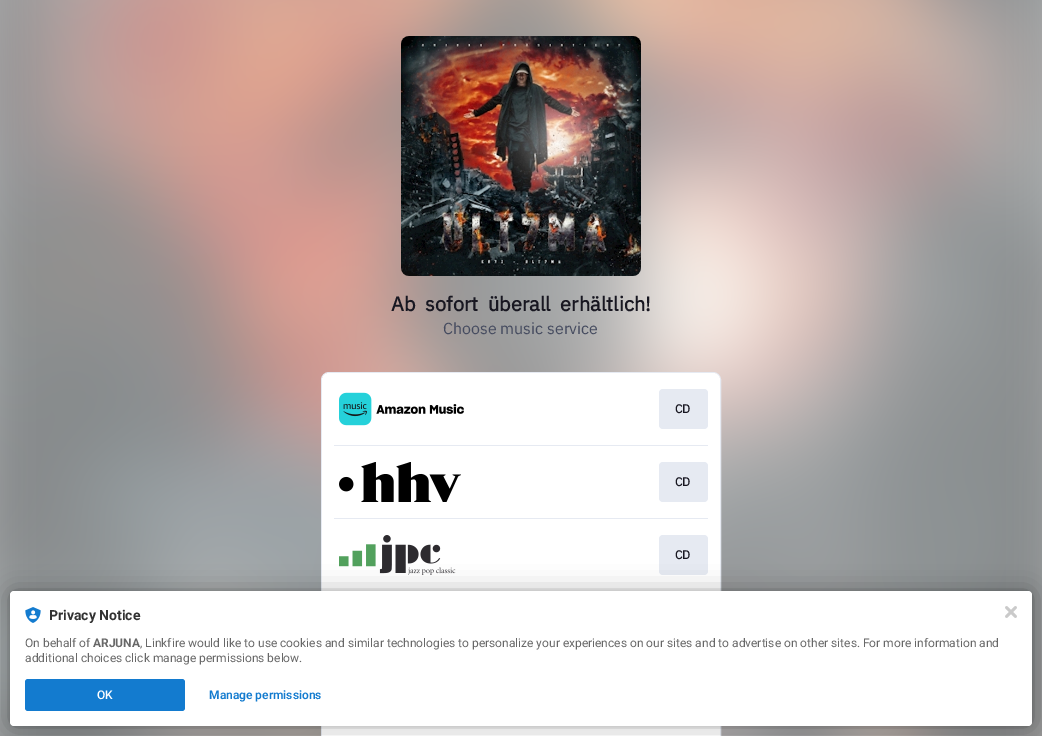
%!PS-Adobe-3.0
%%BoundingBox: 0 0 1042 736
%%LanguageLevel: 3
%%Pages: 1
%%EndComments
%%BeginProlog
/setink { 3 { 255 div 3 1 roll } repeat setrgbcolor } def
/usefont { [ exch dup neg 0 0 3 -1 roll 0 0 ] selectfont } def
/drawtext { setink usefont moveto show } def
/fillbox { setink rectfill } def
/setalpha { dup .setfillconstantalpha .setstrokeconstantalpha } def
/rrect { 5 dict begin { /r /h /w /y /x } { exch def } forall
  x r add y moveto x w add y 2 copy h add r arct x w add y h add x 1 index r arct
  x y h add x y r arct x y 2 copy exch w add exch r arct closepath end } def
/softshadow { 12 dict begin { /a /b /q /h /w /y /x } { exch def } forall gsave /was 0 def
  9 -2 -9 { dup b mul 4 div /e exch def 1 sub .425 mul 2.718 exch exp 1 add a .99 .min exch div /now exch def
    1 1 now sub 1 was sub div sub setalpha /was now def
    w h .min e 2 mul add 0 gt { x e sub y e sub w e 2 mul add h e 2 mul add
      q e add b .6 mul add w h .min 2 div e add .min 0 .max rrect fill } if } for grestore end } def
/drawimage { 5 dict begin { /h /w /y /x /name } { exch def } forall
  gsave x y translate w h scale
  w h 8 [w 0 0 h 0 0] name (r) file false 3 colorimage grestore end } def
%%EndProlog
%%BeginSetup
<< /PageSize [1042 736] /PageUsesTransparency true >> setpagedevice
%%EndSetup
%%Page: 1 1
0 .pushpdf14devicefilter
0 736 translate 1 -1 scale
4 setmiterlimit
0 0 1042 736 255 255 255 fillbox
(assets/img1.rgb) 0 0 1042 736 drawimage
(assets/img2.rgb) 401 36 240 240 drawimage
/IBMPlexSans-Bold 20 usefont
24 23 33 setink
391 311 moveto 5 0 32 (Ab sofort überall erhältlich!) widthshow
(Choose music service) 443 334 /IBMPlexSans-Regular 16 69 75 95 drawtext
230 234 242 setink
321.5 372.5 399 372 7.5 rrect stroke
255 255 255 setink
322 373 398 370 7 rrect fill
(assets/img3.rgb) 339 392 125 34 drawimage
230 234 242 setink
659 389 49 40 4 rrect fill
(CD) 675 413 /IBMPlexSans-Bold 12 24 23 33 drawtext
334 445 374 1 230 234 242 fillbox
(assets/img4.rgb) 339 462 122 40 drawimage
659 462 49 40 4 rrect fill
(CD) 675 486 /IBMPlexSans-Bold 12 24 23 33 drawtext
334 518 374 1 230 234 242 fillbox
(assets/img5.rgb) 339 535 117 40 drawimage
659 535 49 40 4 rrect fill
(CD) 675 559 /IBMPlexSans-Bold 12 24 23 33 drawtext
0 0 0 setink
10 591 1022 135 4 2 0.12 softshadow
10 591 1022 135 4 12 0.3 softshadow
255 255 255 setink
10 591 1022 135 4 rrect fill
(assets/img6.rgb) 25 607 16 16 drawimage
(Privacy Notice) 49 620 /Roboto-Bold 14 50 50 50 drawtext
(On behalf of) 25 647 /Roboto-Regular 12 104 104 104 drawtext
(ARJUNA) 93 647 /Roboto-Bold 12 104 104 104 drawtext
(, Linkfire would like to use cookies and similar technologies to personalize your experiences on our sites and to advertise on other sites. For more information and) 140 647 /Roboto-Regular 12 104 104 104 drawtext
(additional choices click manage permissions below.) 25 662 /Roboto-Regular 12 104 104 104 drawtext
19 123 207 setink
25 679 160 32 3 rrect fill
(OK) 97 699 /Roboto-Medium 12 255 255 255 drawtext
(Manage permissions) 209 699 /Roboto-SemiBold 12 19 123 207 drawtext
(assets/img7.rgb) 1005 606 12 12 drawimage
.poppdf14devicefilter showpage
%%EOF
